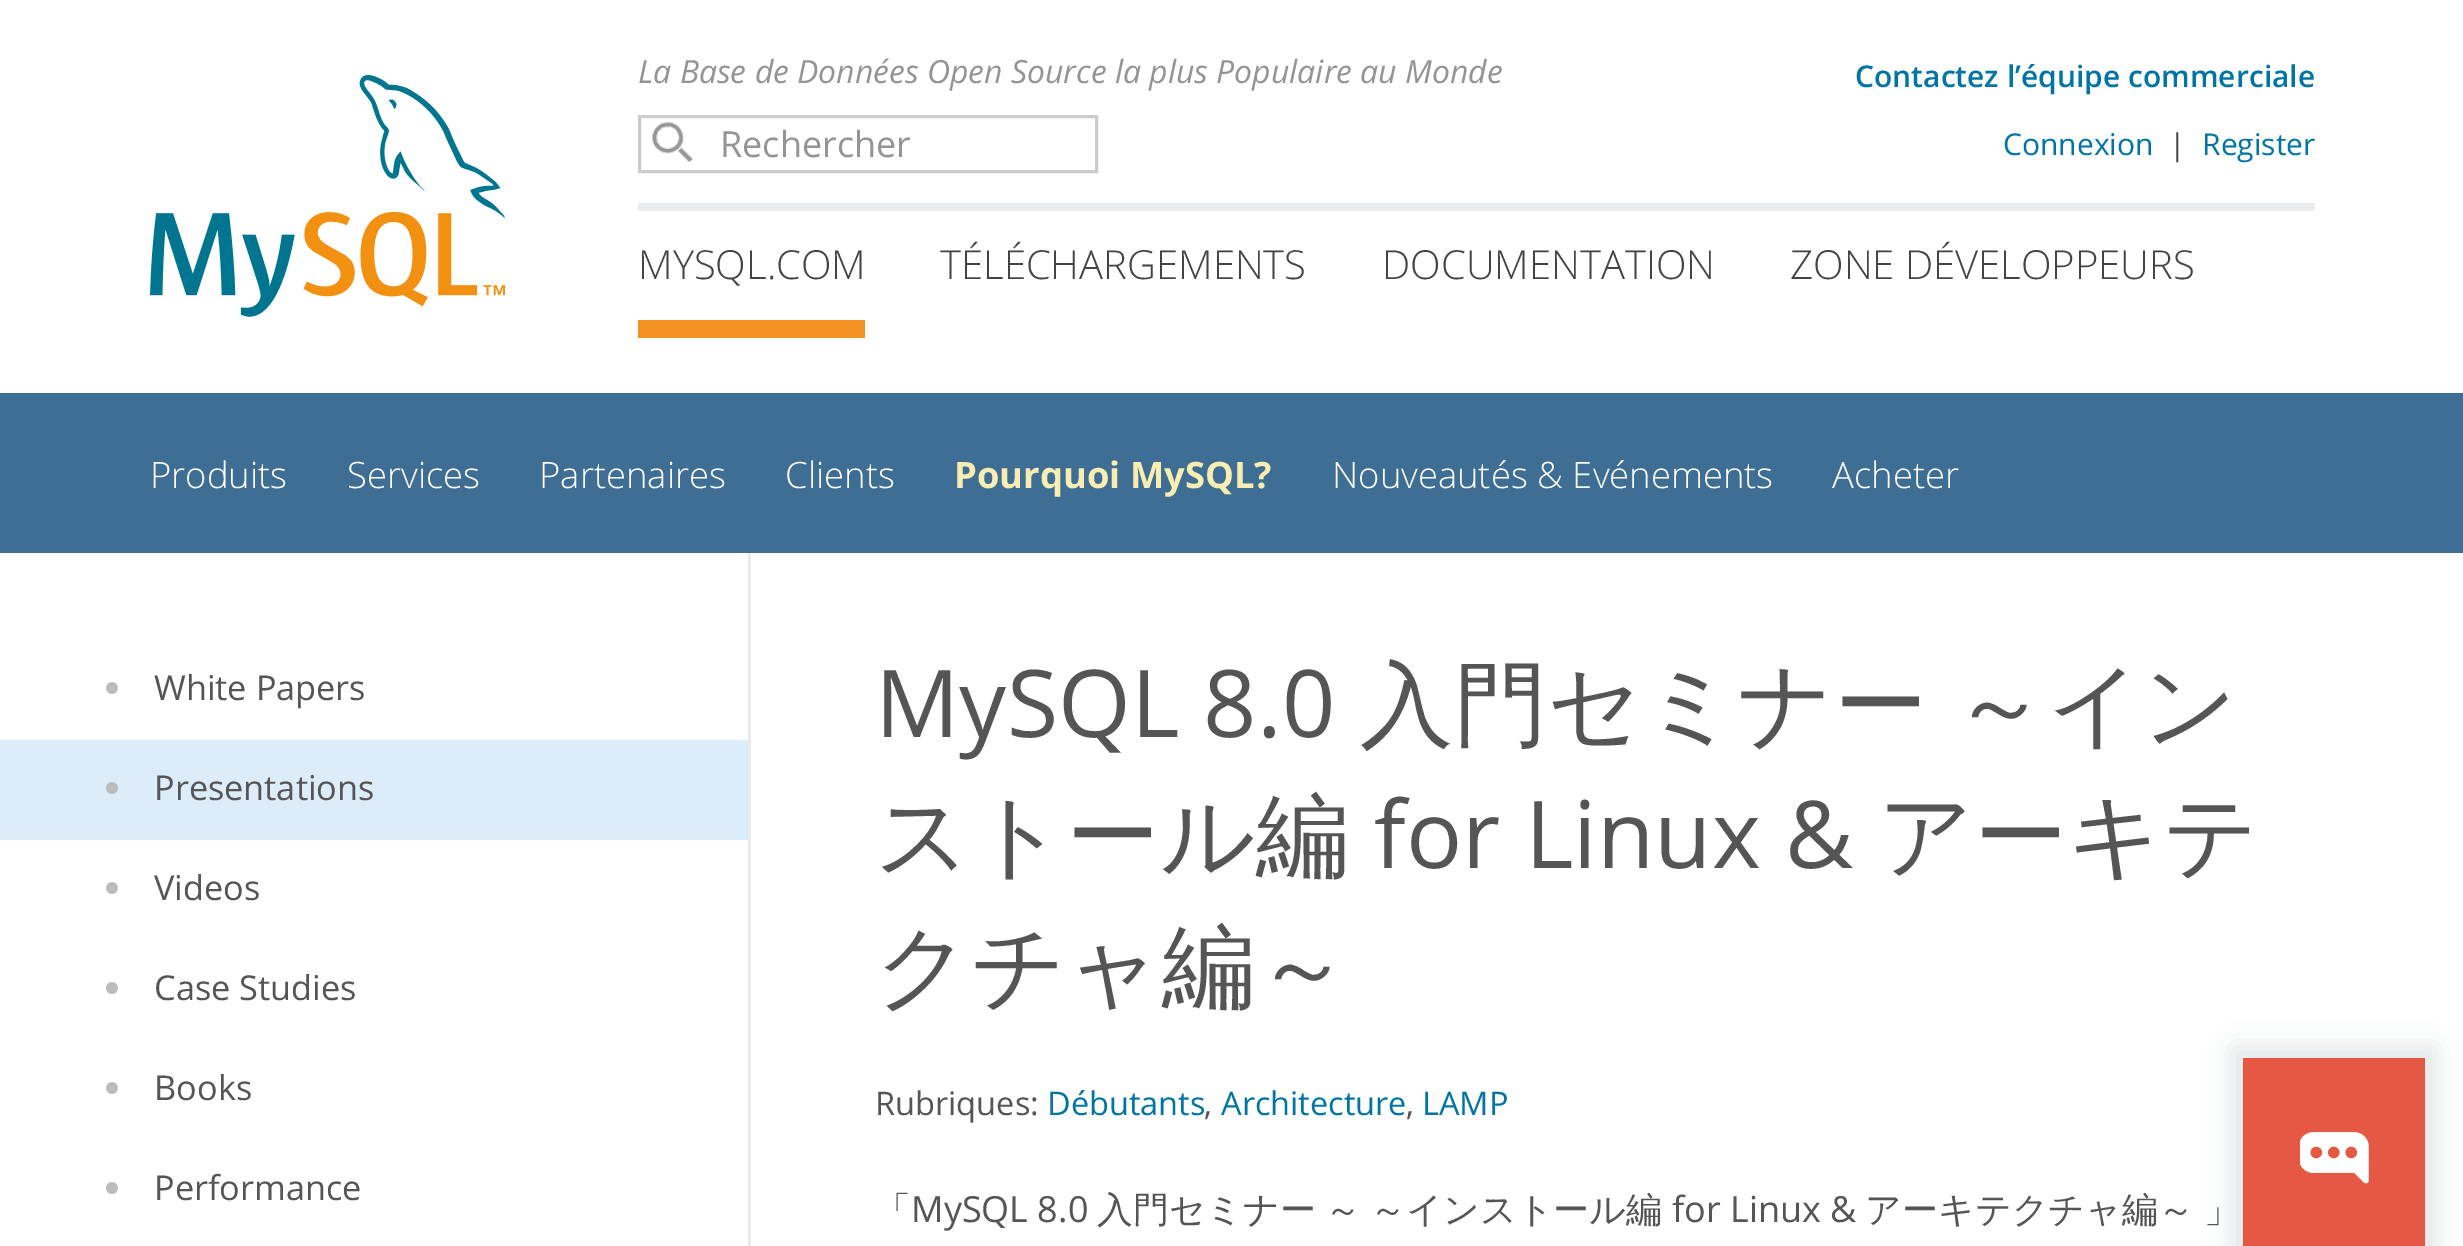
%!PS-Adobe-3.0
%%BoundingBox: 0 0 2463 1246
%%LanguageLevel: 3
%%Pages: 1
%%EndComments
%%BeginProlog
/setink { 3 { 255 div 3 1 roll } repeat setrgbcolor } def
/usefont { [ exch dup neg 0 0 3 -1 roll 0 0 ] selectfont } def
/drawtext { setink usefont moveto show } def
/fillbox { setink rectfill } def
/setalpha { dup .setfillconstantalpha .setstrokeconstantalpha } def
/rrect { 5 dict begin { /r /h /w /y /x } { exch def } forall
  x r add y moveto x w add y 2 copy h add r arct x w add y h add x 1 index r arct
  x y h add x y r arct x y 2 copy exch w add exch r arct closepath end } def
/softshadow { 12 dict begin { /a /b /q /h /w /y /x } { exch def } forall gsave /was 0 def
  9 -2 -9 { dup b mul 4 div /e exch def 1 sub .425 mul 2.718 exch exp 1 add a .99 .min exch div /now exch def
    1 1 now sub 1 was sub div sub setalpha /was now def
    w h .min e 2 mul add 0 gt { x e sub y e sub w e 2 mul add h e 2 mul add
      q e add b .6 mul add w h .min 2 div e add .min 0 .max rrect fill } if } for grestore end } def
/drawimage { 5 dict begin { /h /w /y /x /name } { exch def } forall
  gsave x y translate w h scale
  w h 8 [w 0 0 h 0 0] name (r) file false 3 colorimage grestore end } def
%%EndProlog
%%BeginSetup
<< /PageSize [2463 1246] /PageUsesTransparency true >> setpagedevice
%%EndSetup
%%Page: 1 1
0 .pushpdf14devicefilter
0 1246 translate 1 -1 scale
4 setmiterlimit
0 0 2463 1246 255 255 255 fillbox
(assets/img1.rgb) 150 75 355 242 drawimage
638 203 1677 8 235 236 238 fillbox
(La Base de Données Open Source la plus Populaire au Monde) 638 83 /OpenSans-Italic 32 148 148 148 drawtext
(Contactez l’équipe commerciale) 1855 87 /OpenSans-SemiBold 30 0 116 163 drawtext
(Connexion) 2003 155 /OpenSans-Regular 30 0 116 163 drawtext
(|) 2169 155 /OpenSans-Regular 30 68 68 68 drawtext
(Register) 2202 155 /OpenSans-Regular 30 0 116 163 drawtext
(assets/img2.rgb) 652 122 41 41 drawimage
204 204 204 setink
3 setlinewidth
639.5 116.5 457 55 rectstroke
(Rechercher) 720 157 /OpenSans-Regular 36 148 148 148 drawtext
638 320 227 18 242 146 33 fillbox
(MYSQL.COM) 638 279 /OpenSans-Light 40 68 68 68 drawtext
(TÉLÉCHARGEMENTS) 940 279 /OpenSans-Light 40 68 68 68 drawtext
(DOCUMENTATION) 1382 279 /OpenSans-Light 40 68 68 68 drawtext
(ZONE DÉVELOPPEURS) 1790 279 /OpenSans-Light 40 68 68 68 drawtext
0 393 2463 160 62 110 147 fillbox
(Produits) 150 488 /OpenSans-Light 36.4 255 255 255 drawtext
(Services) 347 488 /OpenSans-Light 36.4 255 255 255 drawtext
(Partenaires) 539 488 /OpenSans-Light 36.4 255 255 255 drawtext
(Clients) 785 488 /OpenSans-Light 36.4 255 255 255 drawtext
(Pourquoi MySQL?) 954 488 /OpenSans-Bold 36.4 250 237 178 drawtext
(Nouveautés & Evénements) 1332 488 /OpenSans-Light 36.4 255 255 255 drawtext
(Acheter) 1832 488 /OpenSans-Light 36.4 255 255 255 drawtext
748 553 3 693 233 234 235 fillbox
(assets/img3.rgb) 106 682 12 12 drawimage
(White Papers) 154 700 /OpenSans-Regular 34.25 85 85 85 drawtext
0 740 748 100 221 236 249 fillbox
(assets/img4.rgb) 106 782 12 12 drawimage
(Presentations) 154 800 /OpenSans-Regular 34.25 85 85 85 drawtext
(assets/img3.rgb) 106 882 12 12 drawimage
(Videos) 154 900 /OpenSans-Regular 34.25 85 85 85 drawtext
(assets/img3.rgb) 106 982 12 12 drawimage
(Case Studies) 154 1000 /OpenSans-Regular 34.25 85 85 85 drawtext
(assets/img3.rgb) 106 1082 12 12 drawimage
(Books) 154 1100 /OpenSans-Regular 34.25 85 85 85 drawtext
(assets/img3.rgb) 106 1182 12 12 drawimage
(Performance) 154 1200 /OpenSans-Regular 34.25 85 85 85 drawtext
(MySQL 8.0) 875 737 /OpenSans-Regular 93.5 85 85 85 drawtext
(入門セミナー) 1360 737 /WenQuanYiZenHei-Medium 93.5 85 85 85 drawtext
(～イン) 1953 737 /WenQuanYiZenHei-Medium 93.5 85 85 85 drawtext
(ストール編) 875 868 /WenQuanYiZenHei-Medium 93.5 85 85 85 drawtext
(for Linux &) 1374 868 /OpenSans-Regular 93.5 85 85 85 drawtext
(アーキテ) 1878 868 /WenQuanYiZenHei-Medium 93.5 85 85 85 drawtext
(クチャ編～) 875 999 /WenQuanYiZenHei-Medium 93.5 85 85 85 drawtext
(Rubriques:) 875 1115 /OpenSans-Regular 32.5 85 85 85 drawtext
(Débutants) 1047 1115 /OpenSans-Regular 32.5 0 116 163 drawtext
(,) 1204 1115 /OpenSans-Regular 32.5 85 85 85 drawtext
(Architecture) 1221 1115 /OpenSans-Regular 32.5 0 116 163 drawtext
(,) 1406 1115 /OpenSans-Regular 32.5 85 85 85 drawtext
(LAMP) 1422 1115 /OpenSans-Regular 32.5 0 116 163 drawtext
(「) 875 1222 /WenQuanYiZenHei-Medium 36 85 85 85 drawtext
(MySQL 8.0) 911 1222 /OpenSans-Regular 36 85 85 85 drawtext
(入門セミナー) 1097 1222 /WenQuanYiZenHei-Medium 36 85 85 85 drawtext
(～) 1325 1222 /WenQuanYiZenHei-Medium 36 85 85 85 drawtext
(～インストール編) 1370 1222 /WenQuanYiZenHei-Medium 36 85 85 85 drawtext
(for Linux &) 1672 1222 /OpenSans-Regular 36 85 85 85 drawtext
(アーキテクチャ編～) 1865 1222 /WenQuanYiZenHei-Medium 36 85 85 85 drawtext
(」) 2204 1222 /WenQuanYiZenHei-Medium 36 85 85 85 drawtext
50 75 92 setink
2233 1048 202 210 0 12.5 0.15 softshadow
2243 1058 182 188 229 88 68 fillbox
(assets/img5.rgb) 2300 1132 69 52 drawimage
.poppdf14devicefilter showpage
%%EOF
